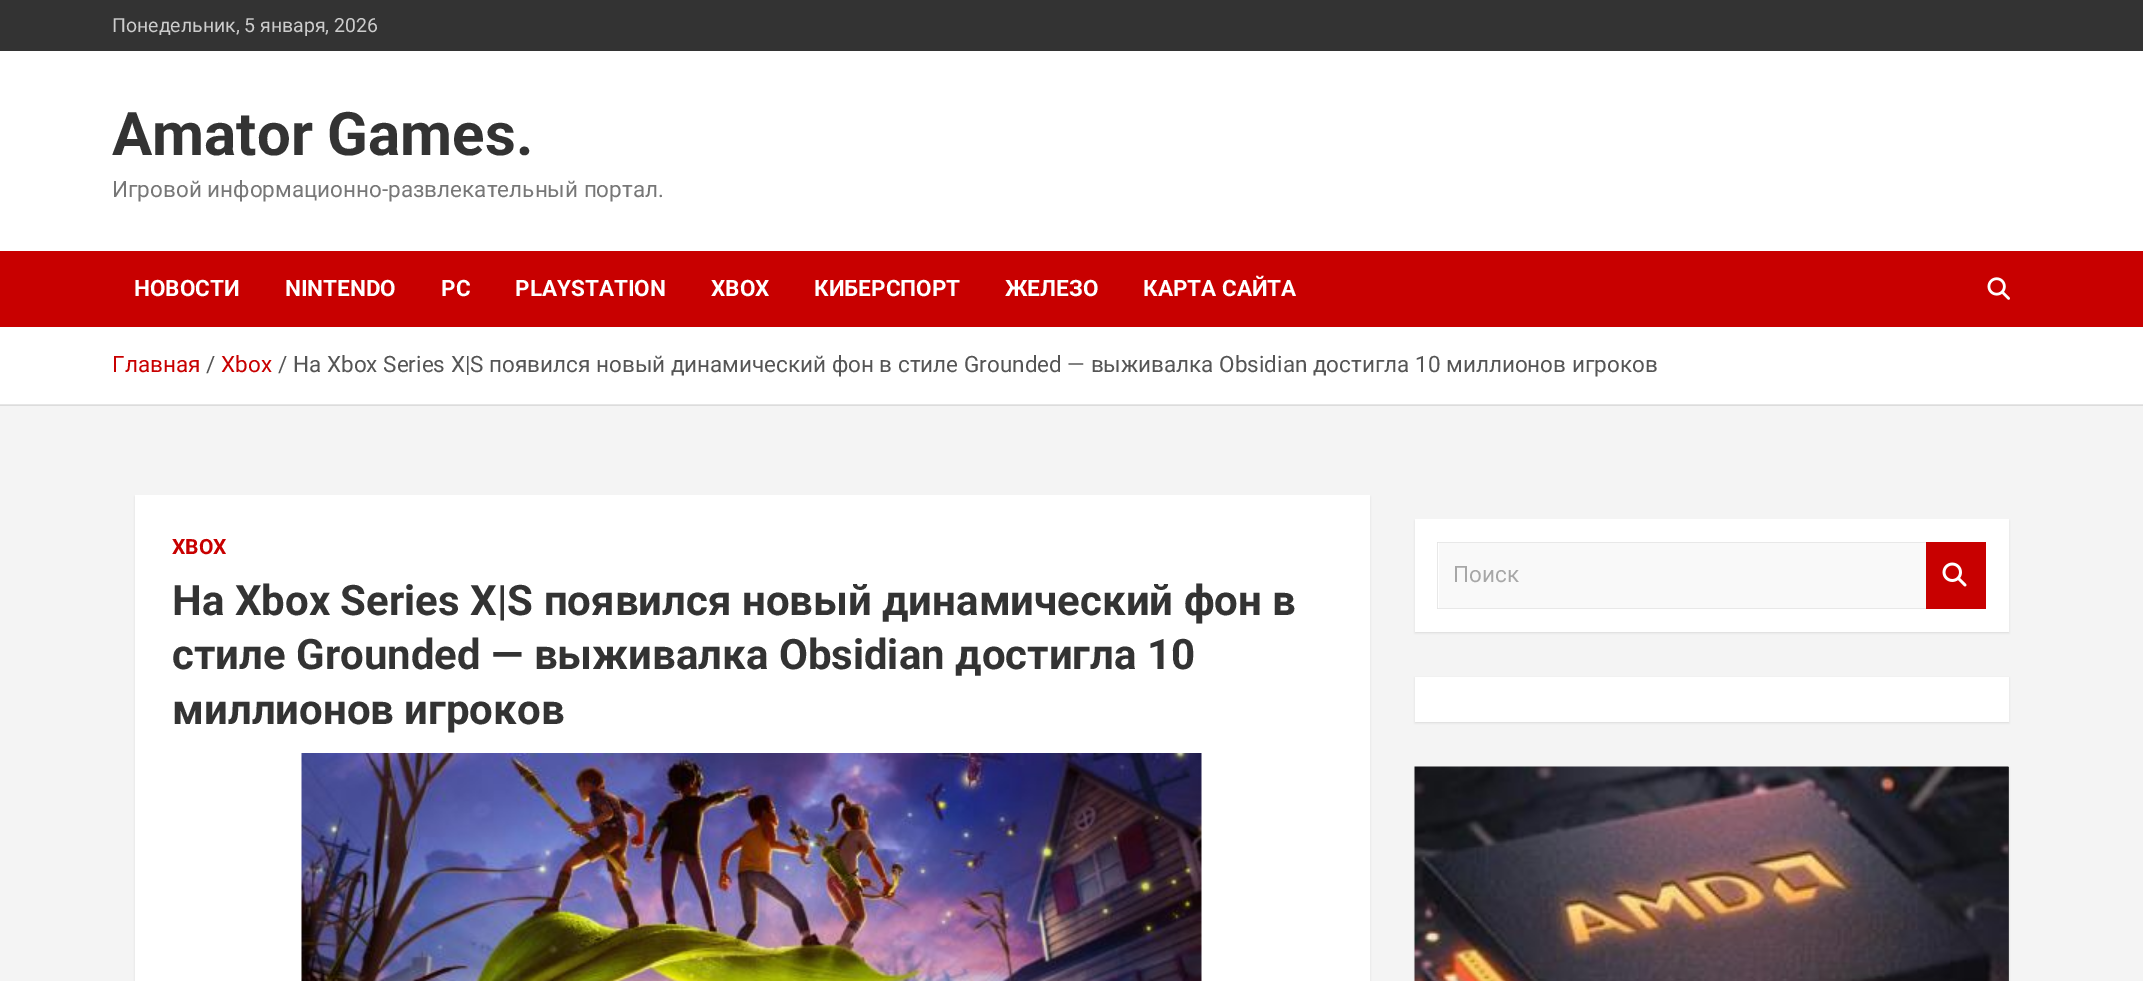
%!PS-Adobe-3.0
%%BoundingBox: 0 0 2143 981
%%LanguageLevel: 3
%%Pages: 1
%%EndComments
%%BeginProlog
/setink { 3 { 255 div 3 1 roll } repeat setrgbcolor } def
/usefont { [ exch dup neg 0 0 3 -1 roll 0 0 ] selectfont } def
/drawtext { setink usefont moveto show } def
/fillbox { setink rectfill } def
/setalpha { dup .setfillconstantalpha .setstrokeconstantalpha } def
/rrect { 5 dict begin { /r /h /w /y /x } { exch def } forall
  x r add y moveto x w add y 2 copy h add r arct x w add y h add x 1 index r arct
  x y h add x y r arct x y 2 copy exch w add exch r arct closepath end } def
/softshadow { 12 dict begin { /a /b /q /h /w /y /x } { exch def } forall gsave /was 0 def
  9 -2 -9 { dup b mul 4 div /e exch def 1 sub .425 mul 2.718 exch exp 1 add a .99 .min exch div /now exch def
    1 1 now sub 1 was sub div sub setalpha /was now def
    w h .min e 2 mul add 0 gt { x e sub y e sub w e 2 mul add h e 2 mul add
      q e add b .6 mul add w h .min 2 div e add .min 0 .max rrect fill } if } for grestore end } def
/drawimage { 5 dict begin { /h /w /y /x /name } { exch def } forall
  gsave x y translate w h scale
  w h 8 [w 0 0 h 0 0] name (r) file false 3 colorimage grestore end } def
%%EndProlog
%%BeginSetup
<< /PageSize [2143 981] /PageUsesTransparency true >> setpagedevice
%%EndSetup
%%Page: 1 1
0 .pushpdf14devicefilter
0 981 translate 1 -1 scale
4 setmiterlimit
0 0 2143 981 244 244 244 fillbox
0 405 2143 1 220 220 220 fillbox
0 0 2143 51 51 51 51 fillbox
(Понедельник, 5 января, 2026) 112 32 /Roboto-Regular 19.5 204 204 204 drawtext
0 51 2143 200 255 255 255 fillbox
(Amator Games.) 112 155 /Roboto-Bold 60 51 51 51 drawtext
(Игровой информационно-развлекательный портал.) 112 197 /Roboto-Regular 22.5 119 119 119 drawtext
0 251 2143 76 200 0 0 fillbox
(НОВОСТИ) 134 296 /Roboto-Bold 22.5 255 255 255 drawtext
(NINTENDO) 285 296 /Roboto-Bold 22.5 255 255 255 drawtext
(PC) 441 296 /Roboto-Bold 22.5 255 255 255 drawtext
(PLAYSTATION) 515 296 /Roboto-Bold 22.5 255 255 255 drawtext
(XBOX) 711 296 /Roboto-Bold 22.5 255 255 255 drawtext
(КИБЕРСПОРТ) 814 296 /Roboto-Bold 22.5 255 255 255 drawtext
(ЖЕЛЕЗО) 1005 296 /Roboto-Bold 22.5 255 255 255 drawtext
(КАРТА САЙТА) 1143 296 /Roboto-Bold 22.5 255 255 255 drawtext
(assets/img1.rgb) 1987 277 23 23 drawimage
0 327 2143 77 255 255 255 fillbox
0 404 2143 1 230 230 230 fillbox
(Главная) 112 372 /Roboto-Regular 22.5 200 0 0 drawtext
(/) 206 372 /Roboto-Regular 22.5 85 85 85 drawtext
(Xbox) 221 372 /Roboto-Regular 22.5 200 0 0 drawtext
(/) 278 372 /Roboto-Regular 22.5 85 85 85 drawtext
(На Xbox Series X|S появился новый динамический фон в стиле Grounded — выживалка Obsidian достигла 10 миллионов игроков) 293 372 /Roboto-Regular 22.5 85 85 85 drawtext
0 0 0 setink
135 497 1235 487 0 1 0.1 softshadow
135 495 1235 486 255 255 255 fillbox
(XBOX) 172 554 /Roboto-Bold 21 200 0 0 drawtext
(На Xbox Series X|S появился новый динамический фон в) 172 615 /Roboto-Bold 42 51 51 51 drawtext
(стиле Grounded — выживалка Obsidian достигла 10) 172 669 /Roboto-Bold 42 51 51 51 drawtext
(миллионов игроков) 172 724 /Roboto-Bold 42 51 51 51 drawtext
(assets/img2.rgb) 301 753 901 228 drawimage
0 0 0 setink
1415 521 594 112 0 1 0.1 softshadow
1415 519 594 113 255 255 255 fillbox
1439 543 487 65 249 249 249 fillbox
232 232 232 setink
1437 542 moveto 1926 542 lineto 1926 543 lineto 1438 543 lineto closepath fill
1926 609 moveto 1437 609 lineto 1438 608 lineto 1926 608 lineto closepath fill
0.09 setalpha
0 0 0 setink
1437 609 moveto 1437 542 lineto 1438 543 lineto 1438 608 lineto closepath fill
1 setalpha
(Поиск) 1453 582 /Roboto-Regular 22.5 167 167 167 drawtext
1926 542 60 67 200 0 0 fillbox
(assets/img3.rgb) 1942 562 25 25 drawimage
0 0 0 setink
1415 678 594 45 0 1 0.1 softshadow
1415 677 594 45 255 255 255 fillbox
0 0 0 setink
1415 768 594 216 0 1 0.1 softshadow
2008 767 1 214 85 85 85 fillbox
(assets/img4.rgb) 1414 766 595 215 drawimage
.poppdf14devicefilter showpage
%%EOF
